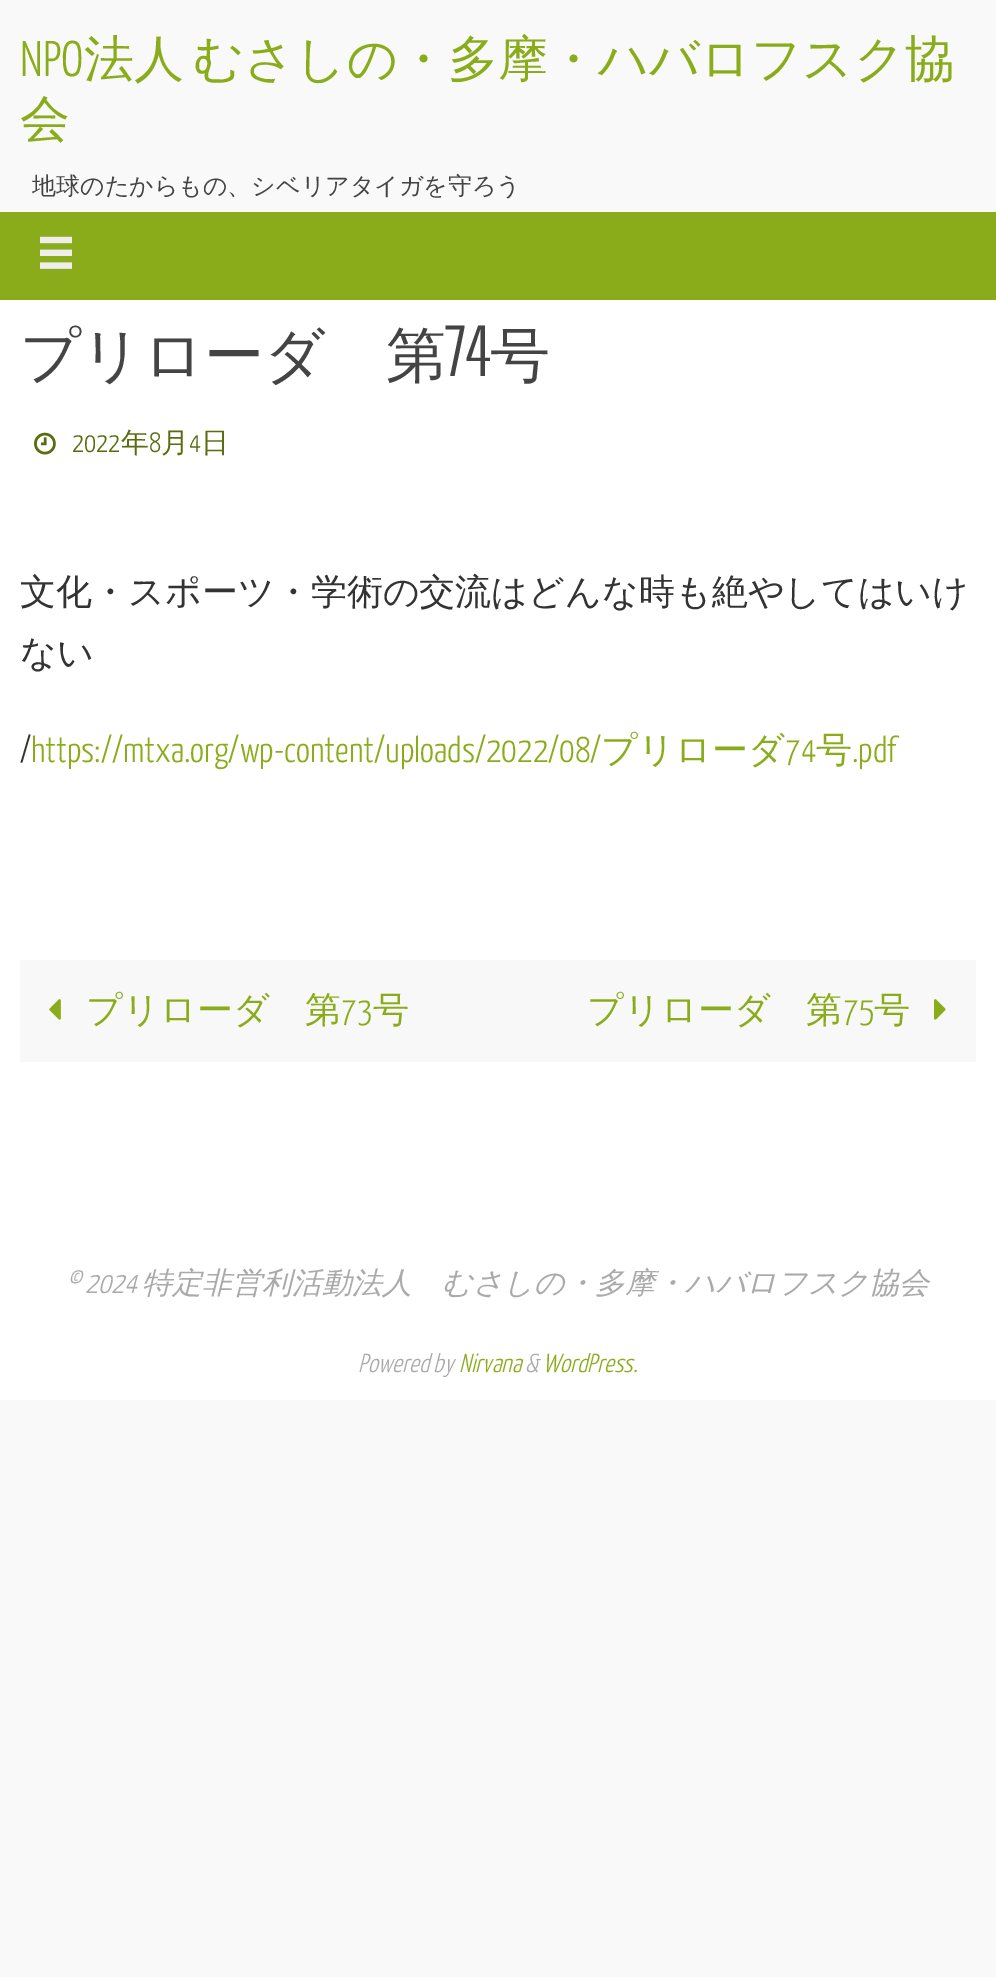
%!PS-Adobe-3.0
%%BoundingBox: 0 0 996 1977
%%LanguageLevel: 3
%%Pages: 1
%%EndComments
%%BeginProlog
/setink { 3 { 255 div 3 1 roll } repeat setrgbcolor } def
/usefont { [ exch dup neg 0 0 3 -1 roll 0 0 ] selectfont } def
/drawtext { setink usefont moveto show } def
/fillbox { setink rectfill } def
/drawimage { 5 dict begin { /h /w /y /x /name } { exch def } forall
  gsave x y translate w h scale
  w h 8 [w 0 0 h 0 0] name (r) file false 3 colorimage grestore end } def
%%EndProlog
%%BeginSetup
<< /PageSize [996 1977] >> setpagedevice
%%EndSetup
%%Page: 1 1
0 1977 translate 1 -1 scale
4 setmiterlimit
0 0 996 1977 249 249 249 fillbox
(NPO) 20 76 /YanoneKaffeesatz-Light 50 138 172 26 drawtext
/WenQuanYiZenHei-Medium 50 usefont
84 76 moveto -6 0 32 (法人 むさしの・多摩・ハバロフスク協) widthshow
(会) 20 136 /WenQuanYiZenHei-Medium 50 138 172 26 drawtext
(地球のたからもの、シベリアタイガを守ろう) 32 194 /WenQuanYiZenHei-Medium 24 68 68 68 drawtext
0 212 996 88 138 172 26 fillbox
(assets/img1.rgb) 40 236 32 33 drawimage
0 300 996 1100 255 255 255 fillbox
(プリローダ　第) 20 376 /WenQuanYiZenHei-Medium 60 68 68 68 drawtext
(74) 446 376 /Oswald-Light 60 68 68 68 drawtext
(号) 490 376 /WenQuanYiZenHei-Medium 60 68 68 68 drawtext
(assets/img2.rgb) 34 432 22 23 drawimage
(2022) 72 452 /YanoneKaffeesatz-Light 28 88 110 16 drawtext
(年) 121 452 /WenQuanYiZenHei-Medium 28 88 110 16 drawtext
(8) 149 452 /YanoneKaffeesatz-Light 28 88 110 16 drawtext
(月) 161 452 /WenQuanYiZenHei-Medium 28 88 110 16 drawtext
(4) 189 452 /YanoneKaffeesatz-Light 28 88 110 16 drawtext
(日) 201 452 /WenQuanYiZenHei-Medium 28 88 110 16 drawtext
(文化・スポーツ・学術の交流はどんな時も絶やしてはいけ) 20 604 /WenQuanYiZenHei-Medium 36 51 51 51 drawtext
(ない) 20 665 /WenQuanYiZenHei-Medium 36 51 51 51 drawtext
(/) 20 762 /YanoneKaffeesatz-Light 36 51 51 51 drawtext
(https://mtxa.org/wp-content/uploads/2022/08/) 31 762 /YanoneKaffeesatz-Light 36 138 172 26 drawtext
(プリローダ) 601 762 /WenQuanYiZenHei-Medium 36 138 172 26 drawtext
(74) 785 762 /YanoneKaffeesatz-Light 36 138 172 26 drawtext
(号) 816 762 /WenQuanYiZenHei-Medium 36 138 172 26 drawtext
(.pdf) 852 762 /YanoneKaffeesatz-Light 36 138 172 26 drawtext
20 960 956 102 248 248 248 fillbox
(assets/img3.rgb) 49 999 12 21 drawimage
(プリローダ　第) 86 1022 /WenQuanYiZenHei-Medium 36 138 172 26 drawtext
(73) 341 1022 /YanoneKaffeesatz-Light 36 138 172 26 drawtext
(号) 373 1022 /WenQuanYiZenHei-Medium 36 138 172 26 drawtext
(プリローダ　第) 587 1022 /WenQuanYiZenHei-Medium 36 138 172 26 drawtext
(75) 843 1022 /YanoneKaffeesatz-Light 36 138 172 26 drawtext
(号) 874 1022 /WenQuanYiZenHei-Medium 36 138 172 26 drawtext
(assets/img4.rgb) 934 999 12 21 drawimage
(© 2024) 66 1293 /YanoneKaffeesatz-LightItalic 30 170 170 170 drawtext
(特定非営利活動法人　むさしの・多摩・ハバロフスク協会) 142 1293 /WenQuanYiZenHei-MediumItalic 30 170 170 170 drawtext
(Powered by) 358 1372 /YanoneKaffeesatz-LightItalic 26 170 170 170 drawtext
(Nirvana) 459 1372 /YanoneKaffeesatz-LightItalic 26 138 172 26 drawtext
(&) 525 1372 /YanoneKaffeesatz-LightItalic 26 170 170 170 drawtext
(WordPress.) 543 1372 /YanoneKaffeesatz-LightItalic 26 138 172 26 drawtext
showpage
%%EOF
